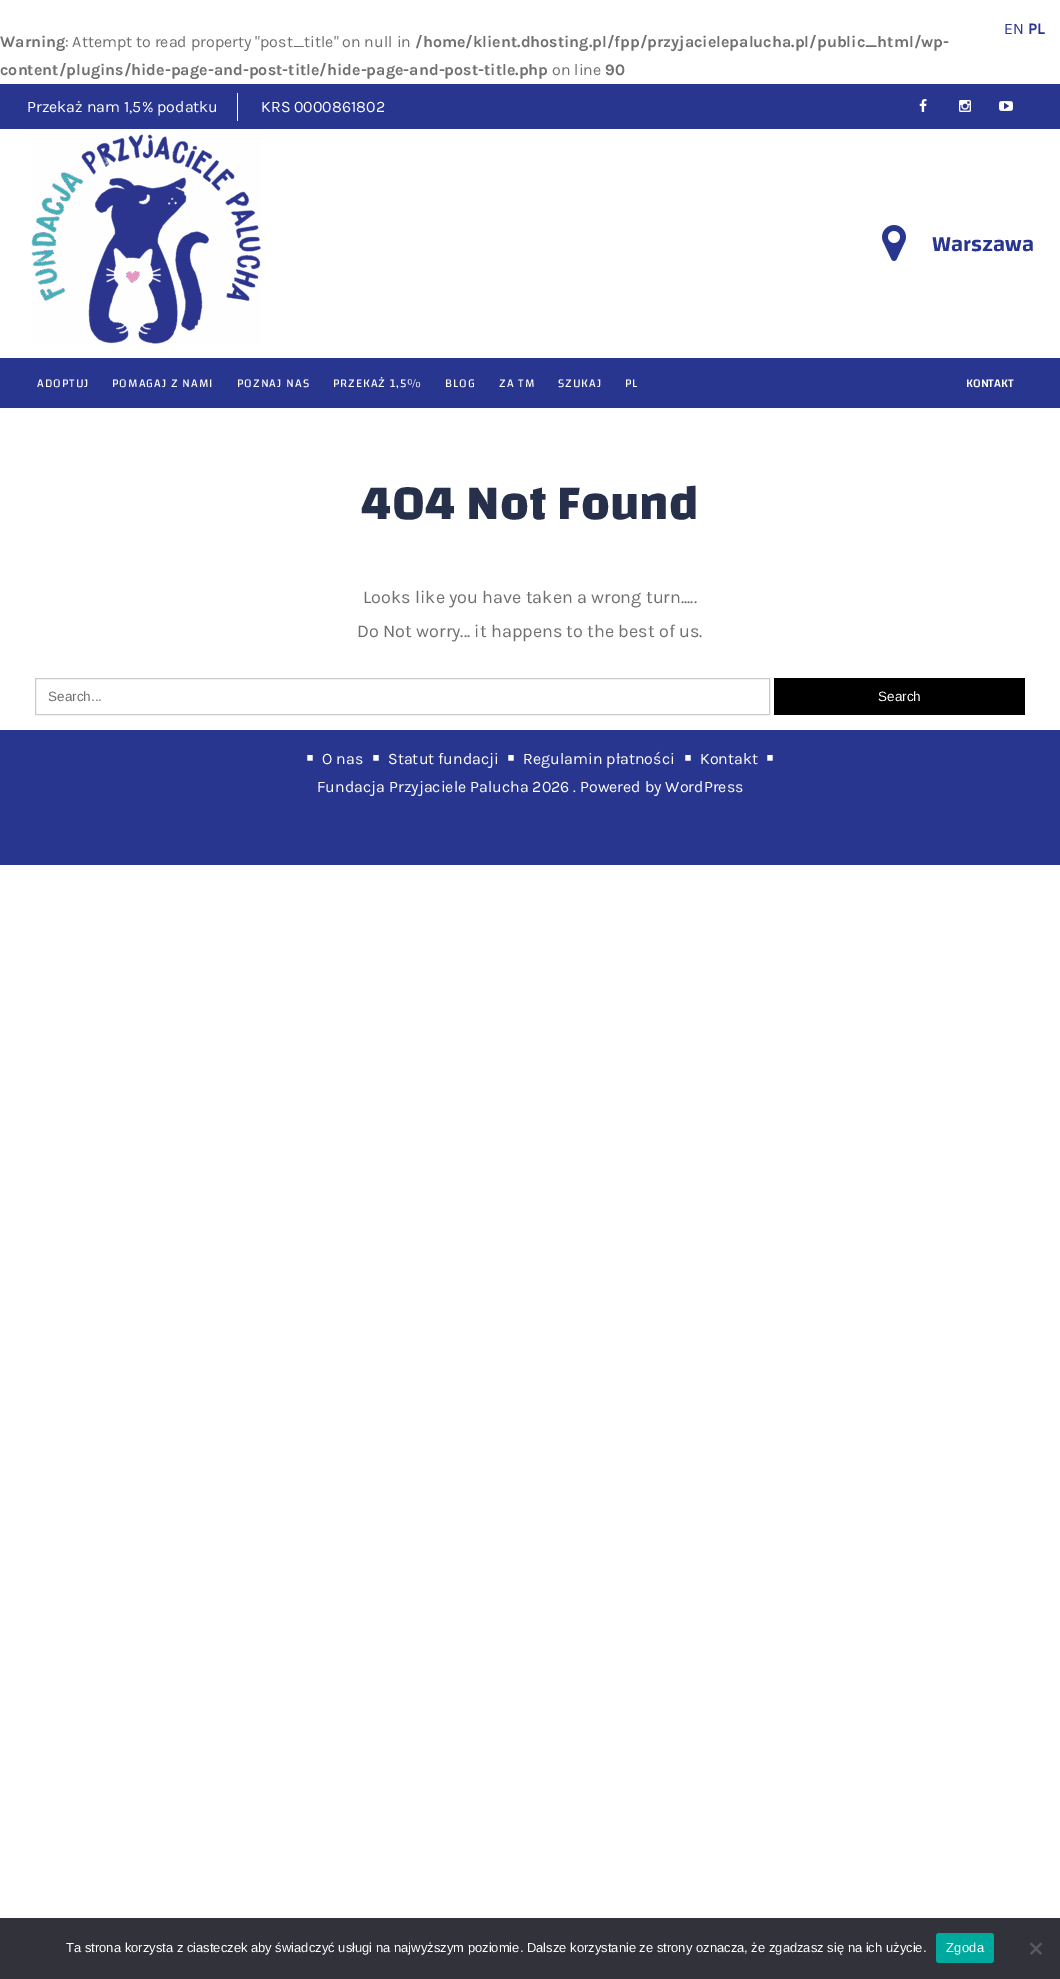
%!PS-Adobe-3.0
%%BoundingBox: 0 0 1060 1979
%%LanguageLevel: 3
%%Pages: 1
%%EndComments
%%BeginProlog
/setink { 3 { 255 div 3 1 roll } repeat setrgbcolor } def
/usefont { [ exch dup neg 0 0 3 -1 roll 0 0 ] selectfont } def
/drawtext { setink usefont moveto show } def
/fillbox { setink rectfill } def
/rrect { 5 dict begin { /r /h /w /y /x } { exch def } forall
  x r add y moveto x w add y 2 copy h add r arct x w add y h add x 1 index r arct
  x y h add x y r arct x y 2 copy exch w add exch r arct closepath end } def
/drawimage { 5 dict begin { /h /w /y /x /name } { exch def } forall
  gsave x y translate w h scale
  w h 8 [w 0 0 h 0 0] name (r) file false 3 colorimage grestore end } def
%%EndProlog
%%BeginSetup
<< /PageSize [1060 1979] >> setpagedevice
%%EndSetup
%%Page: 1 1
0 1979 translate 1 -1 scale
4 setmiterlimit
0 0 1060 1979 255 255 255 fillbox
(Warning) 0 47 /Karla-Bold 16 112 112 112 drawtext
(EN) 1004 34 /Karla-Regular 16 41 54 144 drawtext
(PL) 1028 34 /Karla-Bold 16 41 54 144 drawtext
0 1918 1060 61 50 50 58 fillbox
(Ta strona korzysta z ciasteczek aby świadczyć usługi na najwyższym poziomie. Dalsze korzystanie ze strony oznacza, że zgadzasz się na ich użycie.) 66 1952 /LiberationSans-Regular 13 255 255 255 drawtext
0 169 157 setink
936 1933 58 30 3 rrect fill
255 255 255 setink
946 1952 moveto 0.25 0 (Zgoda) ashow
89 89 93 setink
1040.5 1942.5 moveto 1042 1944 lineto 1031.5 1955 lineto 1030 1953.5 lineto closepath fill
1030 1944 moveto 1031.5 1942.5 lineto 1042 1953.5 lineto 1040.5 1955 lineto closepath fill
(: Attempt to read property "post_title" on null in) 65 47 /Karla-Regular 16 112 112 112 drawtext
(/home/klient.dhosting.pl/fpp/przyjacielepalucha.pl/public_html/wp-) 415 47 /Karla-Bold 16 112 112 112 drawtext
(content/plugins/hide-page-and-post-title/hide-page-and-post-title.php) 0 75 /Karla-Bold 16 112 112 112 drawtext
(on line) 552 75 /Karla-Regular 16 112 112 112 drawtext
(90) 605 75 /Karla-Bold 16 112 112 112 drawtext
0 84 1060 45 41 54 144 fillbox
(Przekaż nam 1,5% podatku) 27 112 /Karla-Regular 16 255 255 255 drawtext
237 93 1 28 255 255 255 fillbox
(KRS 0000861802) 261 112 /Karla-Regular 16 255 255 255 drawtext
(assets/img1.rgb) 919 99 8 13 drawimage
(assets/img2.rgb) 959 100 12 12 drawimage
(assets/img3.rgb) 999 101 14 10 drawimage
(assets/img4.rgb) 31 134 230 210 drawimage
(assets/img5.rgb) 882 225 24 36 drawimage
(Warszawa) 932 251 /Changa-SemiBold 22 41 54 144 drawtext
0 358 1060 50 41 54 144 fillbox
/Changa-Regular 12 usefont
255 255 255 setink
37 387 moveto 1 0 (ADOPTUJ) ashow
112 387 moveto 1 0 (POMAGAJ Z NAMI) ashow
237 387 moveto 1 0 (POZNAJ NAS) ashow
333 387 moveto 1 0 (PRZEKAŻ 1,5%) ashow
445 387 moveto 1 0 (BLOG) ashow
499 387 moveto 1 0 (ZA TM) ashow
558 387 moveto 1 0 (SZUKAJ) ashow
625 387 moveto 1 0 (PL) ashow
(KONTAKT) 966 387 /Changa-Medium 12 255 255 255 drawtext
(404 Not Found) 361 519 /Changa-Bold 50 39 48 75 drawtext
(Looks like you have taken a wrong turn.....) 363 603 /Karla-Regular 18 112 112 112 drawtext
(Do Not worry... it happens to the best of us.) 357 637 /Karla-Regular 18 112 112 112 drawtext
204 204 204 setink
35.5 678.5 734 36 rectstroke
(Search...) 48 701 /LiberationSans-Regular 13.5 112 112 112 drawtext
774 678 251 37 0 0 0 fillbox
(Search) 878 701 /LiberationSans-Regular 13.5 255 255 255 drawtext
0 730 1060 135 41 54 144 fillbox
(￭) 306 764 /ChironHeiHK-Regular 16 255 255 255 drawtext
(O nas) 322 764 /Karla-Regular 16 255 255 255 drawtext
(￭) 372 764 /ChironHeiHK-Regular 16 255 255 255 drawtext
(Statut fundacji) 388 764 /Karla-Regular 16 255 255 255 drawtext
(￭) 507 764 /ChironHeiHK-Regular 16 255 255 255 drawtext
(Regulamin płatności) 523 764 /Karla-Regular 16 255 255 255 drawtext
(￭) 684 764 /ChironHeiHK-Regular 16 255 255 255 drawtext
(Kontakt) 700 764 /Karla-Regular 16 255 255 255 drawtext
(￭) 766 764 /ChironHeiHK-Regular 16 255 255 255 drawtext
(Fundacja Przyjaciele Palucha 2026 . Powered by WordPress) 317 792 /Karla-Regular 16 255 255 255 drawtext
showpage
%%EOF
